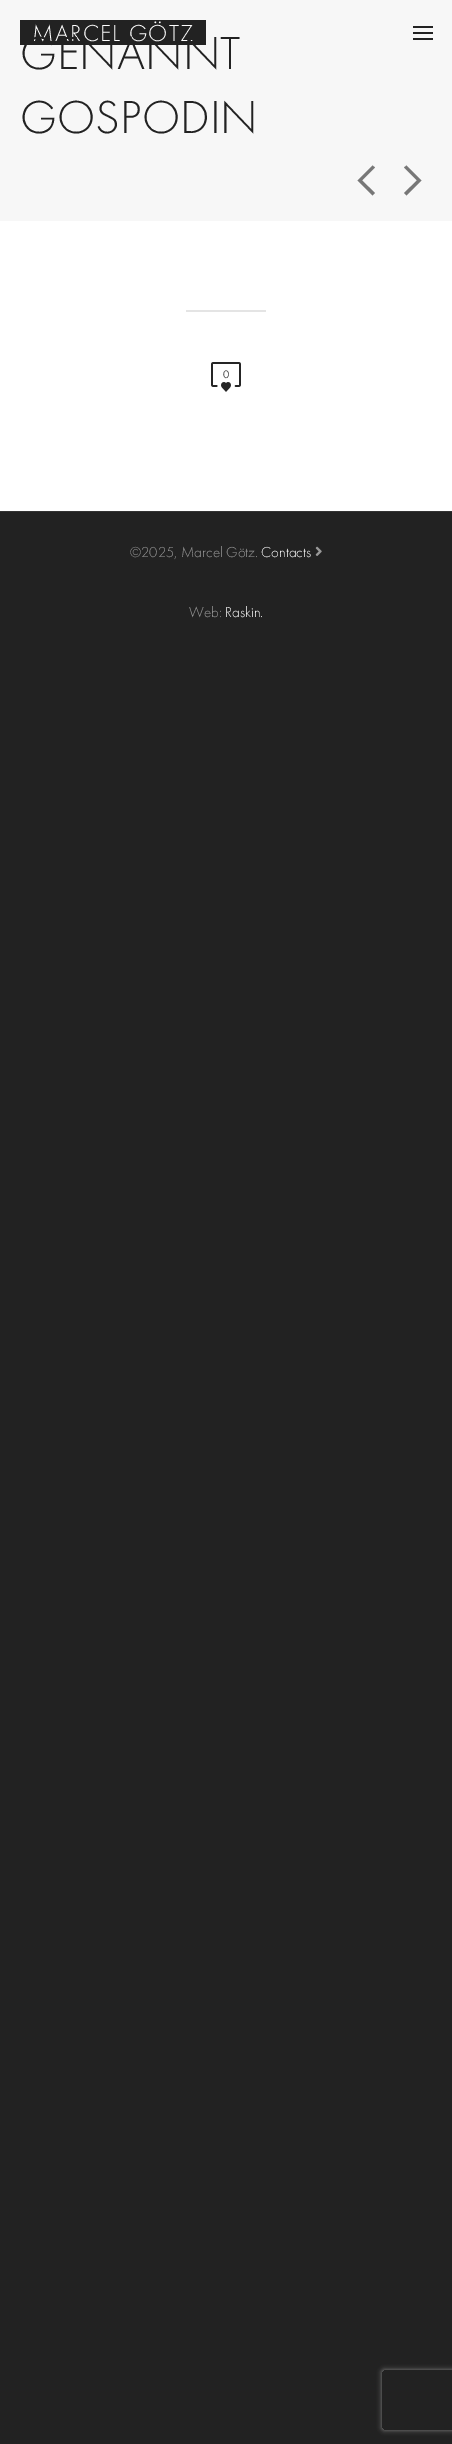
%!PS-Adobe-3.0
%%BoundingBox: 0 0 452 2444
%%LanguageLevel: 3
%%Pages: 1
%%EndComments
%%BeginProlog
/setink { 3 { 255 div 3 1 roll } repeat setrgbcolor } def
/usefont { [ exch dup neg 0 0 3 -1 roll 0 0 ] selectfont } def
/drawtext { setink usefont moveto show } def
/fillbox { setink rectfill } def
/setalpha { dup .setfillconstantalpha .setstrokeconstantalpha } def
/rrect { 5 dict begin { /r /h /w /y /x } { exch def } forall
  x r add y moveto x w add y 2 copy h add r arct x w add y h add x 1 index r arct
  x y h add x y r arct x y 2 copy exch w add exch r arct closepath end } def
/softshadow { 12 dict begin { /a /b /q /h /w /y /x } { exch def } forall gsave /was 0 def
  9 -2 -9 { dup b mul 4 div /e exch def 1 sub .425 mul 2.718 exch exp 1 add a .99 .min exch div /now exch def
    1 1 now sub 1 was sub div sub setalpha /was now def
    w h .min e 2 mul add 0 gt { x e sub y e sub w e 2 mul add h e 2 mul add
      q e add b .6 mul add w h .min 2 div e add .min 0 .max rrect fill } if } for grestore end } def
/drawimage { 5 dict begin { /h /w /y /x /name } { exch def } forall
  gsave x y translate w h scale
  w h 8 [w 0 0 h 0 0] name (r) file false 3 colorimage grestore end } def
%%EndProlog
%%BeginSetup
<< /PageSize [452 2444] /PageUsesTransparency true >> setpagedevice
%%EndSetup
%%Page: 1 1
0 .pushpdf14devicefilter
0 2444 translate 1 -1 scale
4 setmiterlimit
0 0 452 2444 34 34 34 fillbox
0 0 452 221 247 247 247 fillbox
20 20 186 25 34 34 34 fillbox
/FuturaPT-Light 24 usefont
255 255 255 setink
32 41 moveto 1.25 0 (MARCEL GÖTZ) ashow
413 32 20 2 34 34 34 fillbox
413 26 20 2 34 34 34 fillbox
413 38 20 2 34 34 34 fillbox
0 221 452 290 255 255 255 fillbox
(GENANNT) 20 69 /FuturaPT-Light 48 34 34 34 drawtext
(GOSPODIN) 20 133 /FuturaPT-Light 48 34 34 34 drawtext
119 119 119 setink
372.5 165.5 moveto 375 167.5 lineto 362 180.5 lineto 375 193 lineto 372.5 195.5 lineto 357.5 180.5 lineto closepath fill
406.5 165.5 moveto 404 167.5 lineto 417 180.5 lineto 404 193 lineto 406.5 195.5 lineto 421.5 180.5 lineto closepath fill
186 310 80 2 228 228 228 fillbox
(assets/img1.rgb) 211 362 30 30 drawimage
(0) 223 378 /FuturaPT-Bold 11 68 68 68 drawtext
0 511 452 1 51 51 51 fillbox
(©2025, Marcel Götz.) 130 557 /FuturaPT-Light 15 153 153 153 drawtext
(Contacts) 261 557 /FuturaPT-Light 15 255 255 255 drawtext
(assets/img2.rgb) 315 546 7 10 drawimage
(Web:) 189 617 /FuturaPT-Light 15 153 153 153 drawtext
(Raskin.) 225 617 /FuturaPT-Light 15 255 255 255 drawtext
gsave
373 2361 moveto 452 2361 lineto 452 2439 lineto 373 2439 lineto closepath 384 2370 moveto 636 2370 lineto 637 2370 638 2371 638 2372 curveto 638 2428 lineto 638 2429 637 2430 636 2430 curveto 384 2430 lineto 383 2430 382 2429 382 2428 curveto 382 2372 lineto 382 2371 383 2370 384 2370 curveto closepath eoclip newpath
128 128 128 setink
382 2370 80 60 2 2.5 1 softshadow
grestore
.poppdf14devicefilter showpage
%%EOF
